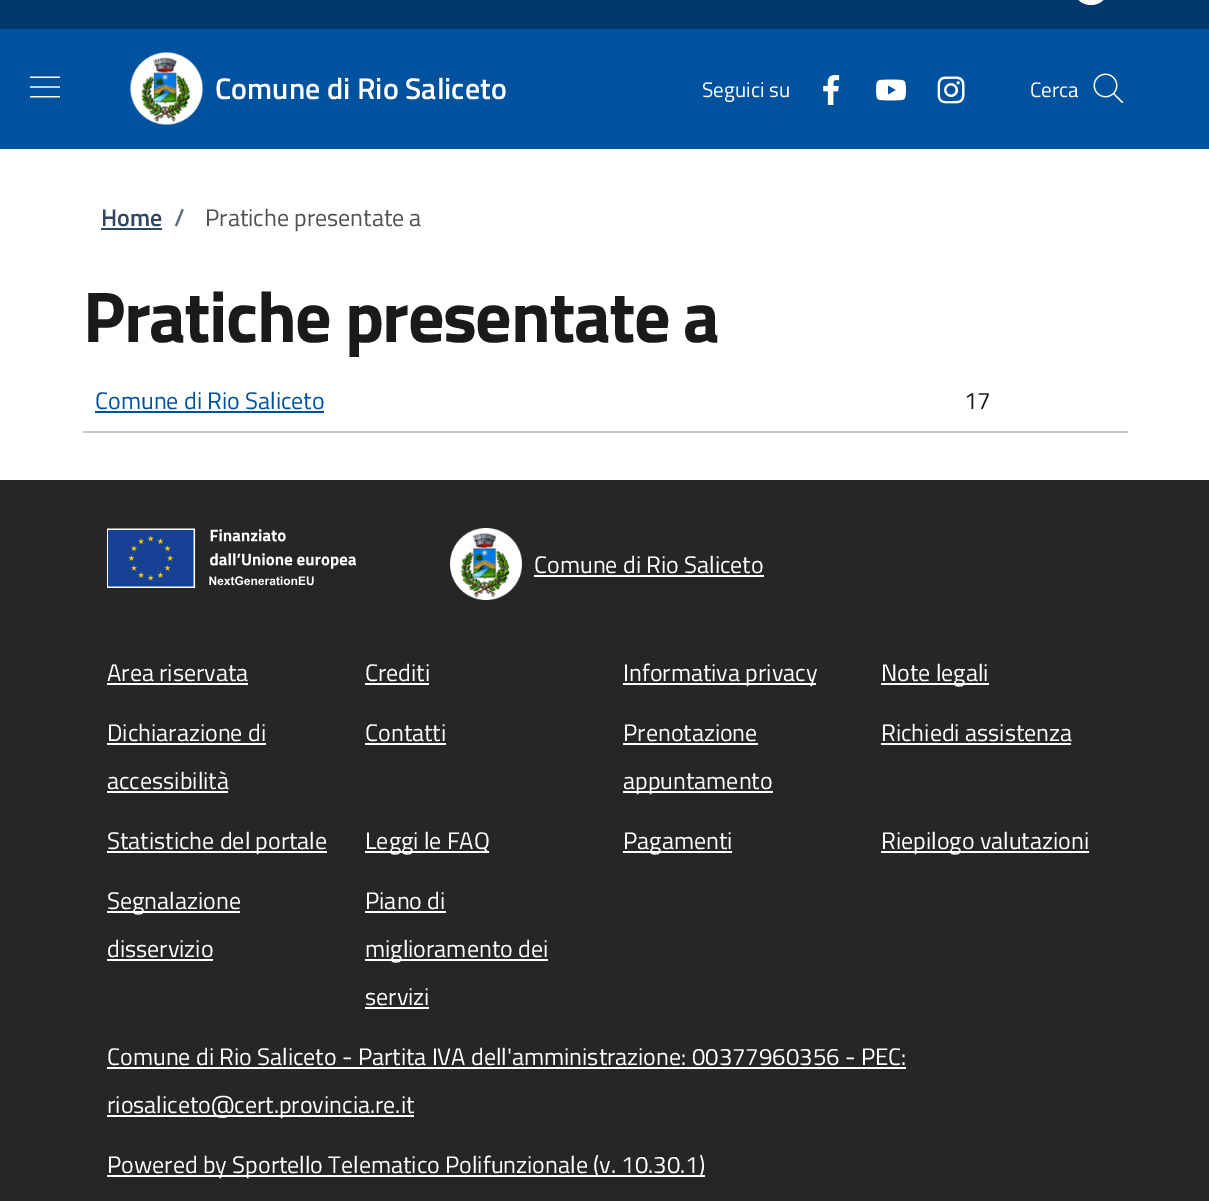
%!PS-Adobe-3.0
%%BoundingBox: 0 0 1209 1201
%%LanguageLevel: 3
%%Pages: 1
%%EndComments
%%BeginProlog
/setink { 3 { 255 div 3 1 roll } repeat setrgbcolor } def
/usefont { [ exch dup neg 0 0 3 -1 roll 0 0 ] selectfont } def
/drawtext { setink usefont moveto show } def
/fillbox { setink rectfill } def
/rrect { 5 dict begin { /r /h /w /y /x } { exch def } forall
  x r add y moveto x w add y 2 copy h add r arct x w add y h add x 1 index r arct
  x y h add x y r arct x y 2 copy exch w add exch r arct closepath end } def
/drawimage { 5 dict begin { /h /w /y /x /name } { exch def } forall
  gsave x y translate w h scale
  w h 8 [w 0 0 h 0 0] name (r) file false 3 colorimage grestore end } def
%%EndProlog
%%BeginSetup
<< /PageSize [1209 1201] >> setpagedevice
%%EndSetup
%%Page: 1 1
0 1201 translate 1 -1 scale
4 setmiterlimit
0 0 1209 1201 255 255 255 fillbox
0 0 1209 29 0 57 110 fillbox
255 255 255 setink
1073 -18 36 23 18 rrect fill
0 29 1209 120 0 82 158 fillbox
(assets/img1.rgb) 30 76 30 22 drawimage
(assets/img2.rgb) 130 52 73 73 drawimage
(Comune di Rio Saliceto) 215 99 /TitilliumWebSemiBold-SemiBold 30 255 255 255 drawtext
(Seguici su) 702 97 /TitilliumWeb-Regular 21 255 255 255 drawtext
(assets/img3.rgb) 823 75 17 30 drawimage
(assets/img4.rgb) 876 79 30 22 drawimage
(assets/img5.rgb) 937 76 28 28 drawimage
(Cerca) 1030 97 /TitilliumWeb-Regular 21 255 255 255 drawtext
(assets/img6.rgb) 1093 73 31 31 drawimage
(Home) 101 226 /TitilliumWebSemiBold-SemiBold 24 48 71 95 drawtext
101 228 61 2 48 71 95 fillbox
(/) 174 226 /TitilliumWebSemiBold-SemiBold 24 93 112 131 drawtext
(Pratiche presentate a) 205 226 /TitilliumWeb-Regular 24 82 82 82 drawtext
/TitilliumWeb-Bold 72 usefont
26 26 26 setink
83 342 moveto -1.5 0 (Pratiche presentate a) ashow
(Comune di Rio Saliceto) 95 409 /TitilliumWeb-Regular 24 0 82 158 drawtext
95 411 229 2 0 82 158 fillbox
83 431 1045 2 197 199 201 fillbox
(17) 964 409 /TitilliumWeb-Regular 24 26 26 26 drawtext
0 480 1209 721 38 38 38 fillbox
(assets/img7.rgb) 107 528 249 60 drawimage
(assets/img8.rgb) 450 528 72 72 drawimage
(Comune di Rio Saliceto) 534 573 /TitilliumWeb-Regular 24 255 255 255 drawtext
534 575 230 2 255 255 255 fillbox
(Area riservata) 107 681 /TitilliumWeb-Regular 24 255 255 255 drawtext
107 683 141 2 255 255 255 fillbox
(Crediti) 365 681 /TitilliumWeb-Regular 24 255 255 255 drawtext
365 683 64 2 255 255 255 fillbox
623 683 193 2 255 255 255 fillbox
(Informativa privacy) 623 681 /TitilliumWeb-Regular 24 255 255 255 drawtext
881 683 108 2 255 255 255 fillbox
(Note legali) 881 681 /TitilliumWeb-Regular 24 255 255 255 drawtext
(Dichiarazione di) 107 741 /TitilliumWeb-Regular 24 255 255 255 drawtext
107 743 159 2 255 255 255 fillbox
(accessibilità) 107 789 /TitilliumWeb-Regular 24 255 255 255 drawtext
107 791 121 2 255 255 255 fillbox
(Contatti) 365 741 /TitilliumWeb-Regular 24 255 255 255 drawtext
365 743 81 2 255 255 255 fillbox
(Prenotazione) 623 741 /TitilliumWeb-Regular 24 255 255 255 drawtext
623 743 135 2 255 255 255 fillbox
623 791 150 2 255 255 255 fillbox
(appuntamento) 623 789 /TitilliumWeb-Regular 24 255 255 255 drawtext
(Richiedi assistenza) 881 741 /TitilliumWeb-Regular 24 255 255 255 drawtext
881 743 190 2 255 255 255 fillbox
107 851 220 2 255 255 255 fillbox
(Statistiche del portale) 107 849 /TitilliumWeb-Regular 24 255 255 255 drawtext
365 851 124 2 255 255 255 fillbox
(Leggi le FAQ) 365 849 /TitilliumWeb-Regular 24 255 255 255 drawtext
623 851 109 2 255 255 255 fillbox
(Pagamenti) 623 849 /TitilliumWeb-Regular 24 255 255 255 drawtext
881 851 208 2 255 255 255 fillbox
(Riepilogo valutazioni) 881 849 /TitilliumWeb-Regular 24 255 255 255 drawtext
107 911 133 2 255 255 255 fillbox
(Segnalazione) 107 909 /TitilliumWeb-Regular 24 255 255 255 drawtext
(disservizio) 107 957 /TitilliumWeb-Regular 24 255 255 255 drawtext
107 959 106 2 255 255 255 fillbox
(Piano di) 365 909 /TitilliumWeb-Regular 24 255 255 255 drawtext
365 911 81 2 255 255 255 fillbox
365 959 183 2 255 255 255 fillbox
(miglioramento dei) 365 957 /TitilliumWeb-Regular 24 255 255 255 drawtext
(servizi) 365 1005 /TitilliumWeb-Regular 24 255 255 255 drawtext
365 1007 64 2 255 255 255 fillbox
(Comune di Rio Saliceto - Partita IVA dell'amministrazione: 00377960356 - PEC:) 107 1065 /TitilliumWeb-Regular 24 255 255 255 drawtext
107 1067 799 2 255 255 255 fillbox
107 1115 307 2 255 255 255 fillbox
(riosaliceto@cert.provincia.re.it) 107 1113 /TitilliumWeb-Regular 24 255 255 255 drawtext
107 1175 598 2 255 255 255 fillbox
(Powered by Sportello Telematico Polifunzionale \(v. 10.30.1\)) 107 1173 /TitilliumWeb-Regular 24 255 255 255 drawtext
showpage
%%EOF
